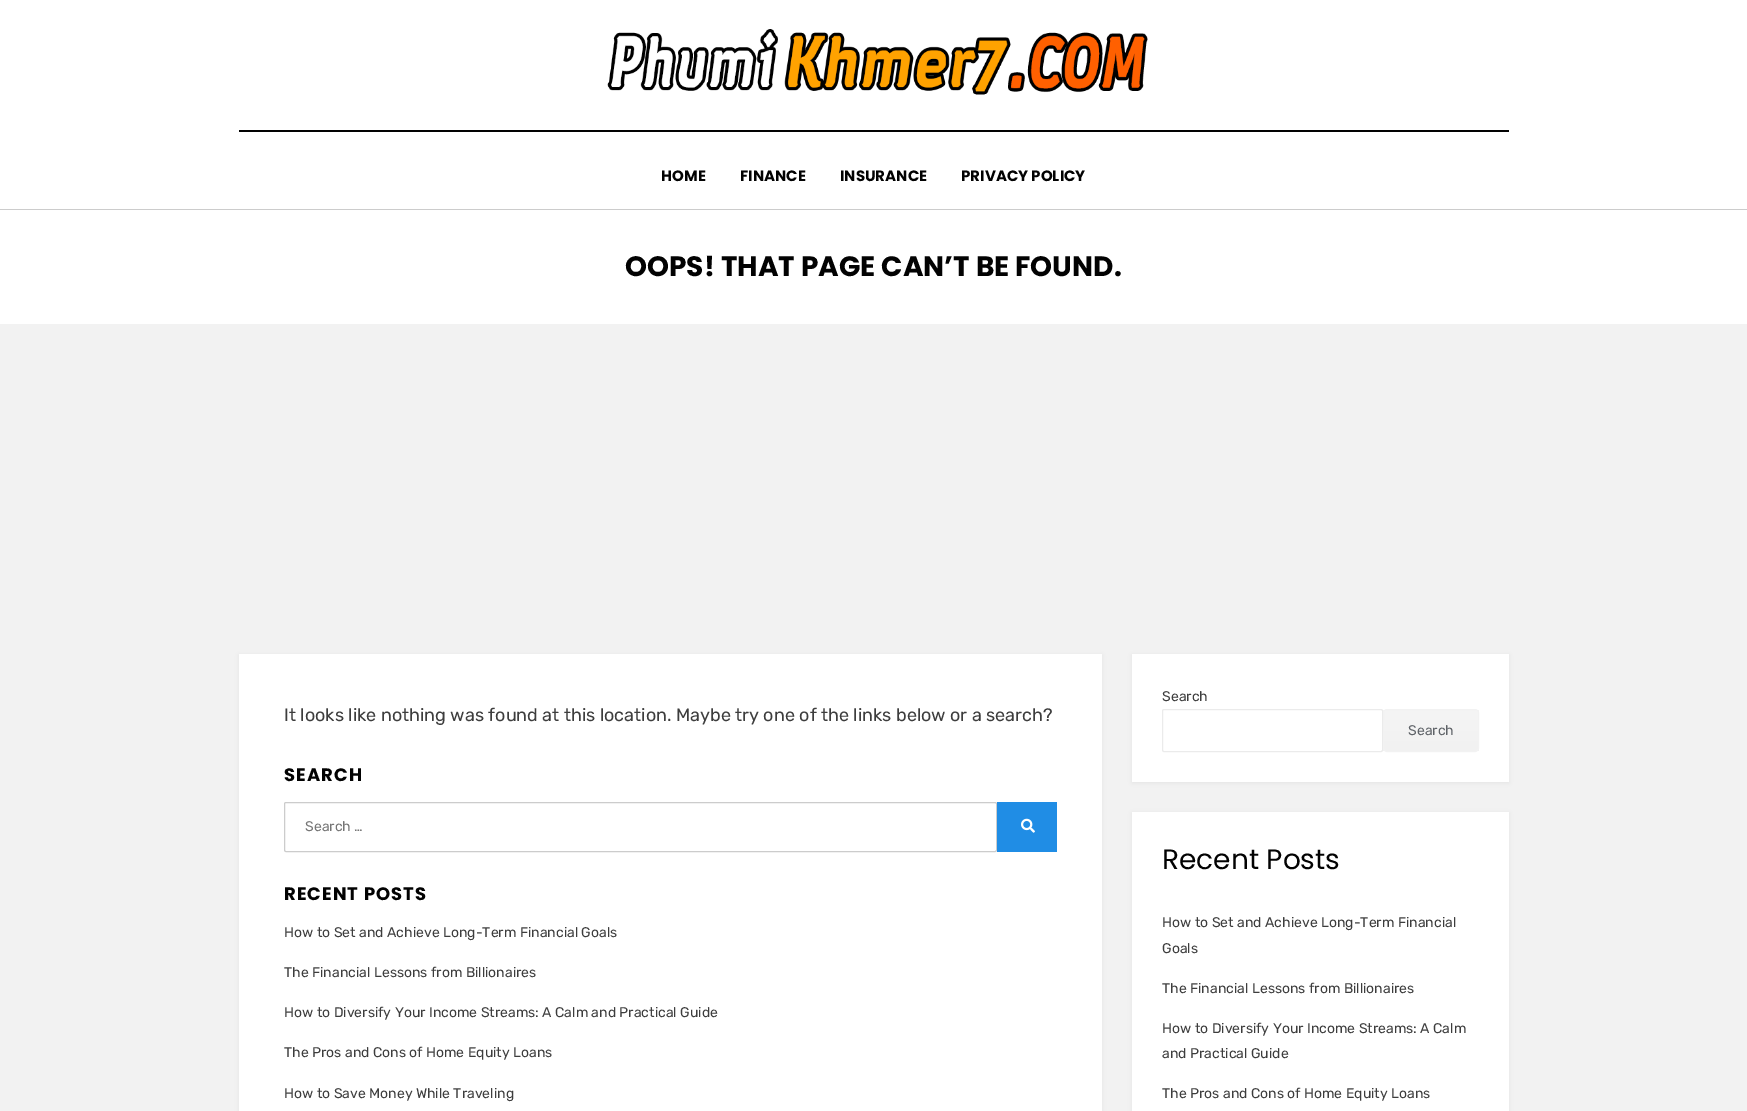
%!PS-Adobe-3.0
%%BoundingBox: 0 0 1747 1111
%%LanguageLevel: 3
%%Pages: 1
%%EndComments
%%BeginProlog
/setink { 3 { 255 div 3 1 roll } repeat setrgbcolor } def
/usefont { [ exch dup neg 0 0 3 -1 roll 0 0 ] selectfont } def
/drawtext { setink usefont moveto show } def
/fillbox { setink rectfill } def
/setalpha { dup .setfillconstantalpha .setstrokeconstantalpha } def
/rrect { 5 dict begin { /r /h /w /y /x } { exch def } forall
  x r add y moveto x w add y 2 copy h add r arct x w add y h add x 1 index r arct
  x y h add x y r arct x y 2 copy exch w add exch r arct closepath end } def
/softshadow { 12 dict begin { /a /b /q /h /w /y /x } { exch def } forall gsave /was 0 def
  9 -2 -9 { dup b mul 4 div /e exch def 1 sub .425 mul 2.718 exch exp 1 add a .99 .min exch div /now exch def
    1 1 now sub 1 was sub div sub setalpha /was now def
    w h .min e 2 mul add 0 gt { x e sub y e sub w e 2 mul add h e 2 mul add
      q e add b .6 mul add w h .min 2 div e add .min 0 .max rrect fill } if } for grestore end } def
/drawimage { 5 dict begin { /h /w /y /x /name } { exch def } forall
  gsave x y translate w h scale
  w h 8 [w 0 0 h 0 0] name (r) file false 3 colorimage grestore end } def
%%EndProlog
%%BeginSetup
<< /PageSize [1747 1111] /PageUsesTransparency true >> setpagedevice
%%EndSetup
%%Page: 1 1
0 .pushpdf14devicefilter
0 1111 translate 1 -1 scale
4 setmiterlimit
0 0 1747 1111 242 242 242 fillbox
0 0 1747 209 255 255 255 fillbox
(assets/img1.rgb) 607 29 541 66 drawimage
239 130 1270 2 2 2 2 fillbox
(HOME) 661 181 /Poppins-Bold 15 2 2 2 drawtext
(FINANCE) 740 181 /Poppins-Bold 15 2 2 2 drawtext
(INSURANCE) 840 181 /Poppins-Bold 15 2 2 2 drawtext
(PRIVACY POLICY) 961 181 /Poppins-Bold 15 2 2 2 drawtext
0 210 1747 114 255 255 255 fillbox
0 209 1747 1 204 204 204 fillbox
(OOPS! THAT PAGE CAN’T BE FOUND.) 625 276 /Poppins-Bold 28 2 2 2 drawtext
0 0 1 setink
239 655 863 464 0 2.5 0.05 softshadow
239 654 863 457 255 255 255 fillbox
(It looks like nothing was found at this location. Maybe try one of the links below or a search?) 284 721 /Rubik-Regular 18 61 61 61 drawtext
/Poppins-Bold 18 usefont
2 2 2 setink
284 781 moveto 1 0 (SEARCH) ashow
204 204 204 setink
284.5 802.5 712 49 1.5 rrect stroke
(Search …) 305 831 /Rubik-Regular 14 117 117 117 drawtext
997 802 60 50 32 141 229 fillbox
(assets/img2.rgb) 1021 818 14 15 drawimage
/Poppins-Bold 18 usefont
2 2 2 setink
284 900 moveto 1 0 (RECENT POSTS) ashow
(How to Set and Achieve Long-Term Financial Goals) 284 937 /Rubik-Regular 14 61 61 61 drawtext
(The Financial Lessons from Billionaires) 284 977 /Rubik-Regular 14 61 61 61 drawtext
(How to Diversify Your Income Streams: A Calm and Practical Guide) 284 1017 /Rubik-Regular 14 61 61 61 drawtext
(The Pros and Cons of Home Equity Loans) 284 1057 /Rubik-Regular 14 61 61 61 drawtext
(How to Save Money While Traveling) 284 1098 /Rubik-Regular 14 61 61 61 drawtext
0 0 1 setink
1132 655 377 128 0 2.5 0.05 softshadow
1132 654 377 128 255 255 255 fillbox
(Search) 1162 701 /Rubik-Regular 14 61 61 61 drawtext
235 235 235 setink
1162.5 709.5 220 42 1.5 rrect stroke
gsave
1383 709 96 43 4 rrect clip newpath
gsave 1383 710 moveto 1479 710 lineto 1479 751 lineto 1383 751 lineto closepath clip newpath
<< /ShadingType 2 /ColorSpace /DeviceRGB /Coords [1431 710 1431 751] /Extend [true true] /Function << /FunctionType 2 /Domain [0 1] /C0 [0.961 0.961 0.961] /C1 [0.945 0.945 0.945] /N 1 >> >> shfill grestore
grestore
242 242 242 setink
1383.5 709.5 95 42 3.5 rrect stroke
(Search) 1408 735 /Rubik-Regular 14 95 99 104 drawtext
0 0 1 setink
1132 813 377 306 0 2.5 0.05 softshadow
1132 812 377 299 255 255 255 fillbox
(Recent Posts) 1162 869 /Poppins-Regular 28 2 2 2 drawtext
(How to Set and Achieve Long-Term Financial) 1162 927 /Rubik-Regular 14 61 61 61 drawtext
(Goals) 1162 953 /Rubik-Regular 14 61 61 61 drawtext
(The Financial Lessons from Billionaires) 1162 993 /Rubik-Regular 14 61 61 61 drawtext
(How to Diversify Your Income Streams: A Calm) 1162 1033 /Rubik-Regular 14 61 61 61 drawtext
(and Practical Guide) 1162 1058 /Rubik-Regular 14 61 61 61 drawtext
(The Pros and Cons of Home Equity Loans) 1162 1098 /Rubik-Regular 14 61 61 61 drawtext
.poppdf14devicefilter showpage
%%EOF
